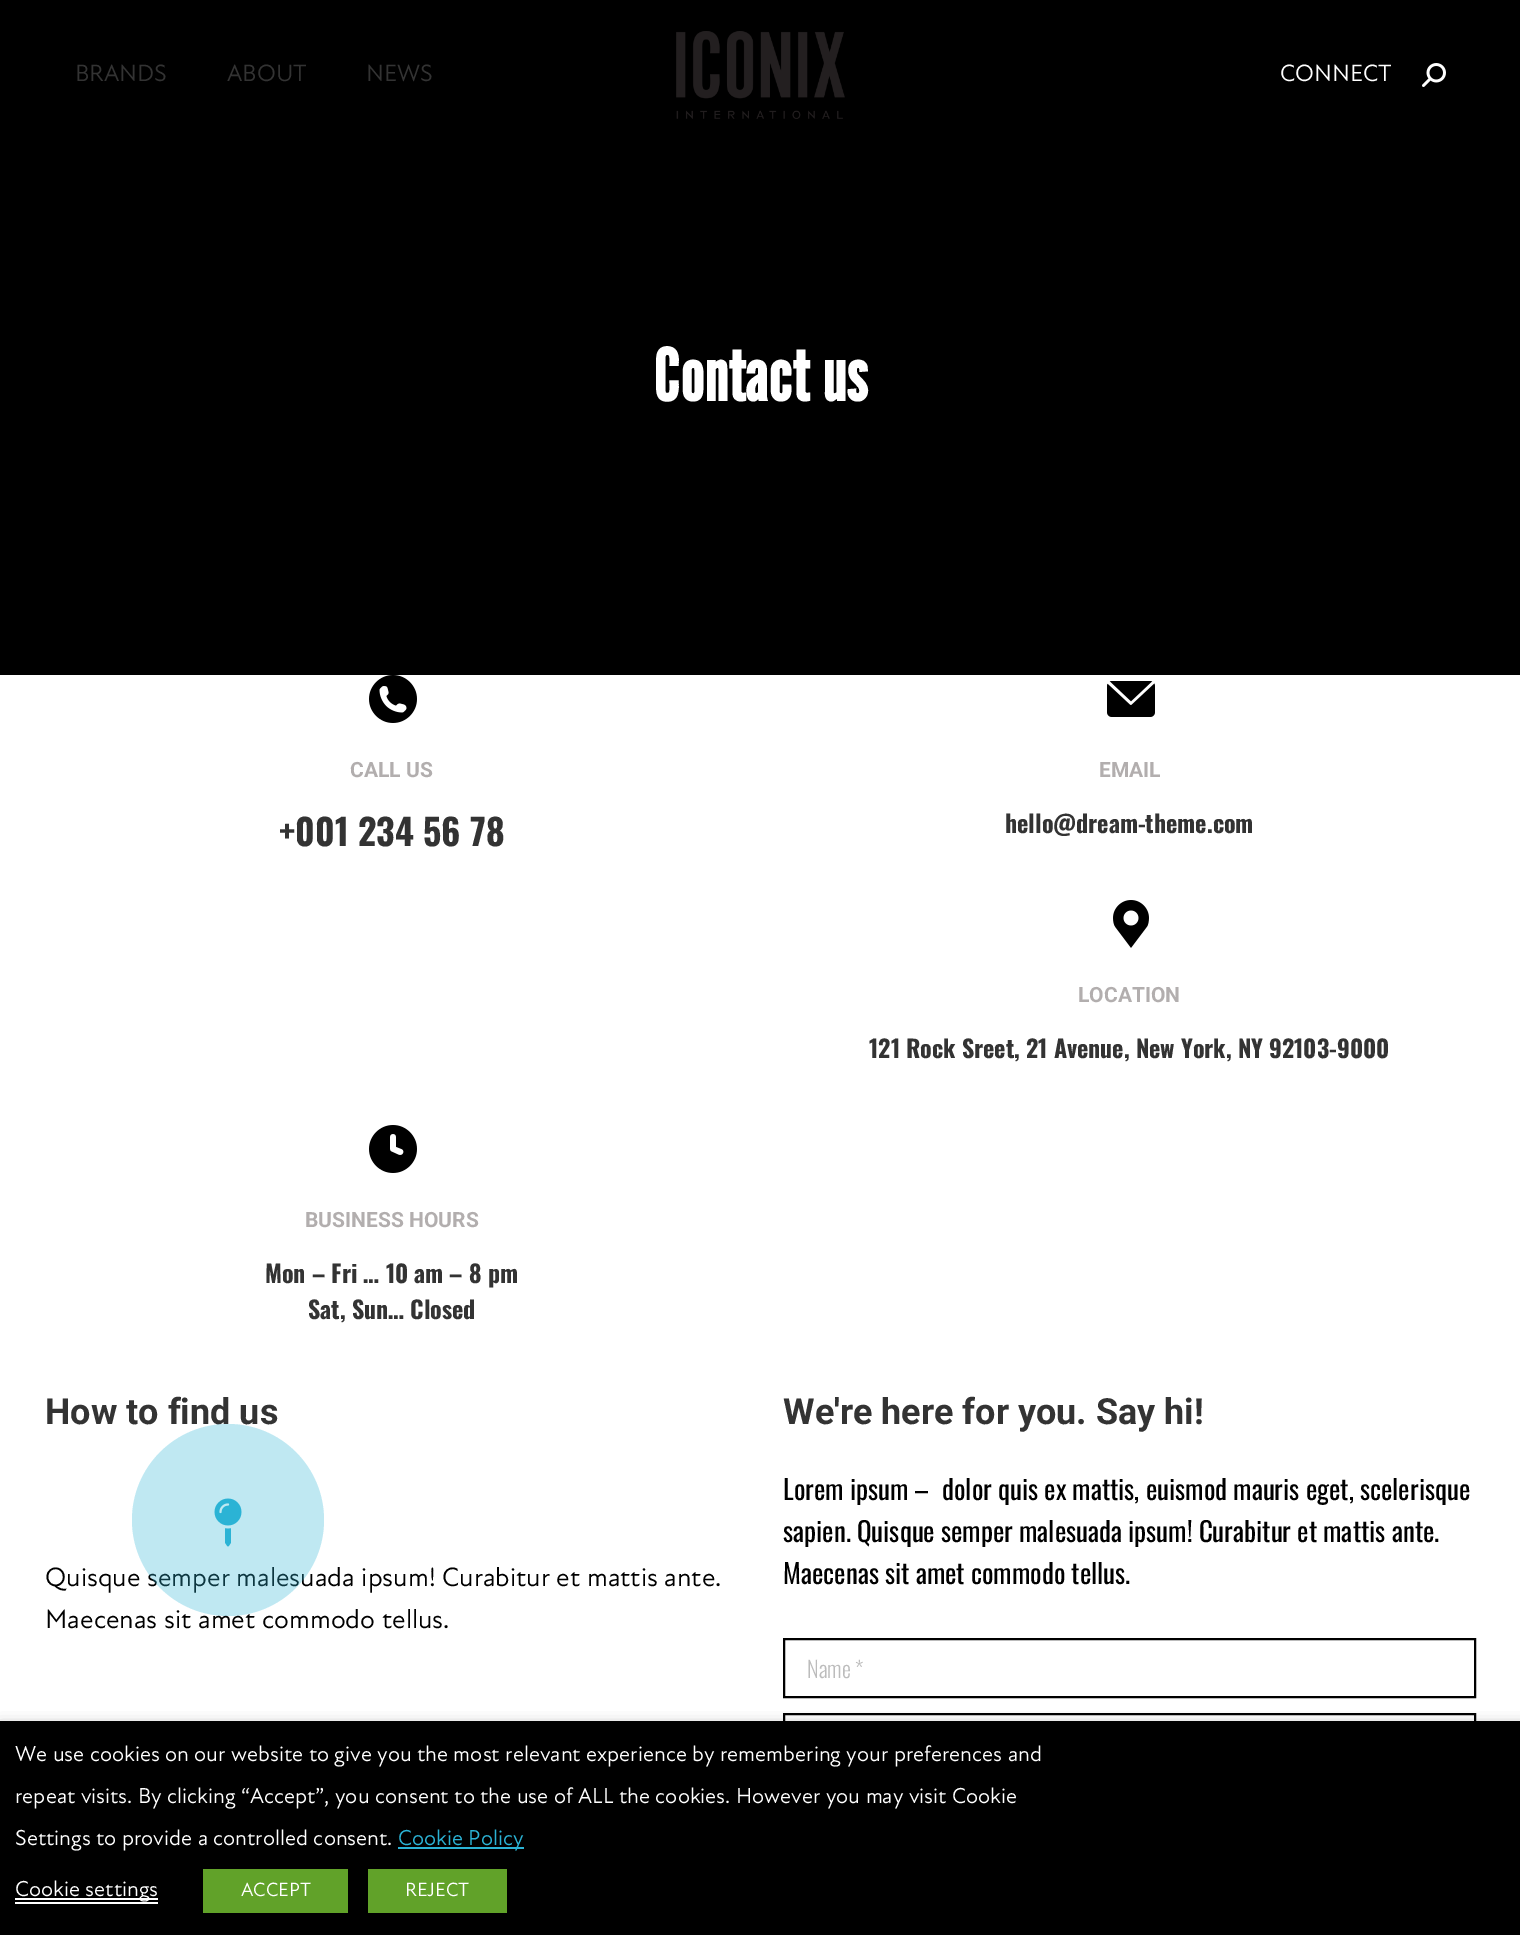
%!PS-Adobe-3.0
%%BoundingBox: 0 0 1520 1935
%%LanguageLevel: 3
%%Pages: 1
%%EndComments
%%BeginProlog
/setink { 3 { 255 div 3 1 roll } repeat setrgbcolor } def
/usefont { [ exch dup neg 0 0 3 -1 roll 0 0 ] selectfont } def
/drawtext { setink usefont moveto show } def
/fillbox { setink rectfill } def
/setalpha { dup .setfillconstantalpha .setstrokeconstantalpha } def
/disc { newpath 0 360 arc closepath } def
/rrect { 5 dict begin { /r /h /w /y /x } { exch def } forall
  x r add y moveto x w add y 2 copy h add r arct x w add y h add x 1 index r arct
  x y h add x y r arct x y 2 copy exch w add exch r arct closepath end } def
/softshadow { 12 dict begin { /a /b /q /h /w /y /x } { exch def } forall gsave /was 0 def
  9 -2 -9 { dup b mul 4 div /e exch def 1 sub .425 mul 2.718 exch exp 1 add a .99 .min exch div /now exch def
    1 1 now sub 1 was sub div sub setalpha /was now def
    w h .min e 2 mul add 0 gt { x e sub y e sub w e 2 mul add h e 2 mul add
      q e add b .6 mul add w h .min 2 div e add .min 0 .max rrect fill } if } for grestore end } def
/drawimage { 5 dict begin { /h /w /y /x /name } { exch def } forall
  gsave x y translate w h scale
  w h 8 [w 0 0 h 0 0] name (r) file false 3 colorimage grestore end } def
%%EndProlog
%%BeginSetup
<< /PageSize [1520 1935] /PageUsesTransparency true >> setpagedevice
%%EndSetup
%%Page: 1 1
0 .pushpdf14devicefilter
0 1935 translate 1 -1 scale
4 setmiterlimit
0 0 1520 1935 255 255 255 fillbox
0 0 1520 675 0 0 0 fillbox
(BRANDS) 75 81 /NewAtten-Regular 24 51 51 51 drawtext
(ABOUT) 227 81 /NewAtten-Regular 24 51 51 51 drawtext
(NEWS) 366 81 /NewAtten-Regular 24 51 51 51 drawtext
(assets/img1.rgb) 676 31 169 88 drawimage
(CONNECT) 1280 81 /NewAtten-Regular 24 255 255 255 drawtext
(assets/img2.rgb) 1422 63 24 24 drawimage
(Contact us) 653 401 /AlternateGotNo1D-Bold 78 255 255 255 drawtext
(assets/img3.rgb) 369 675 48 48 drawimage
(CALL US) 350 777 /Roboto-Bold 21 178 174 174 drawtext
(+001 234 56 78) 279 846 /Oswald-Bold 36 51 51 51 drawtext
(assets/img4.rgb) 1107 681 48 36 drawimage
(EMAIL) 1099 777 /Roboto-Bold 21 178 174 174 drawtext
(hello@dream-theme.com) 1005 833 /Oswald-Bold 24 51 51 51 drawtext
(assets/img5.rgb) 1113 900 36 48 drawimage
(LOCATION) 1078 1002 /Roboto-Bold 21 178 174 174 drawtext
(121 Rock Sreet, 21 Avenue, New York, NY 92103-9000) 869 1058 /Oswald-Bold 24 51 51 51 drawtext
(assets/img6.rgb) 369 1125 48 48 drawimage
(BUSINESS HOURS) 305 1227 /Roboto-Bold 21 178 174 174 drawtext
(Mon – Fri … 10 am – 8 pm) 265 1283 /Oswald-Bold 24 51 51 51 drawtext
(Sat, Sun… Closed) 308 1319 /Oswald-Bold 24 51 51 51 drawtext
(How to find us) 45 1424 /Roboto-Bold 36 51 51 51 drawtext
(Quisque semper malesuada ipsum! Curabitur et mattis ante.) 45 1586 /NewAtten-Regular 27 0 0 0 drawtext
(Maecenas sit amet commodo tellus.) 45 1628 /NewAtten-Regular 27 0 0 0 drawtext
0.3 setalpha
43 179 213 setink
228 1520 96 disc fill
1 setalpha
(assets/img7.rgb) 214 1498 28 49 drawimage
(We're here for you. Say hi!) 783 1424 /Roboto-Bold 36 51 51 51 drawtext
(Lorem ipsum –  dolor quis ex mattis, euismod mauris eget, scelerisque) 783 1500 /Oswald-Regular 27 0 0 0 drawtext
(sapien. Quisque semper malesuada ipsum! Curabitur et mattis ante.) 783 1542 /Oswald-Regular 27 0 0 0 drawtext
(Maecenas sit amet commodo tellus.) 783 1584 /Oswald-Regular 27 0 0 0 drawtext
2 setlinewidth
784 1639 691 58 rectstroke
(Name *) 807 1678 /Oswald-Light 22.5 188 188 188 drawtext
0 0 0 setink
784 1714 691 58 rectstroke
0 1728 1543 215 0 7.5 0.5 softshadow
0 1721 1520 214 0 0 0 fillbox
(We use cookies on our website to give you the most relevant experience by remembering your preferences and) 15 1761 /NewAtten-Regular 22 255 255 255 drawtext
(repeat visits. By clicking “Accept”, you consent to the use of ALL the cookies. However you may visit Cookie) 15 1803 /NewAtten-Regular 22 255 255 255 drawtext
(Settings to provide a controlled consent.) 15 1845 /NewAtten-Regular 22 255 255 255 drawtext
398 1847 126 2 43 179 213 fillbox
(Cookie Policy) 398 1845 /NewAtten-Regular 22 43 179 213 drawtext
15 1898 143 2 255 255 255 fillbox
(Cookie settings) 15 1896 /NewAtten-Regular 22 255 255 255 drawtext
15 1902 143 2 255 255 255 fillbox
203 1869 145 44 97 162 41 fillbox
(ACCEPT) 241 1896 /NewAtten-Regular 19.5 255 255 255 drawtext
368 1869 139 44 97 162 41 fillbox
(REJECT) 405 1896 /NewAtten-Regular 19.5 255 255 255 drawtext
.poppdf14devicefilter showpage
%%EOF
